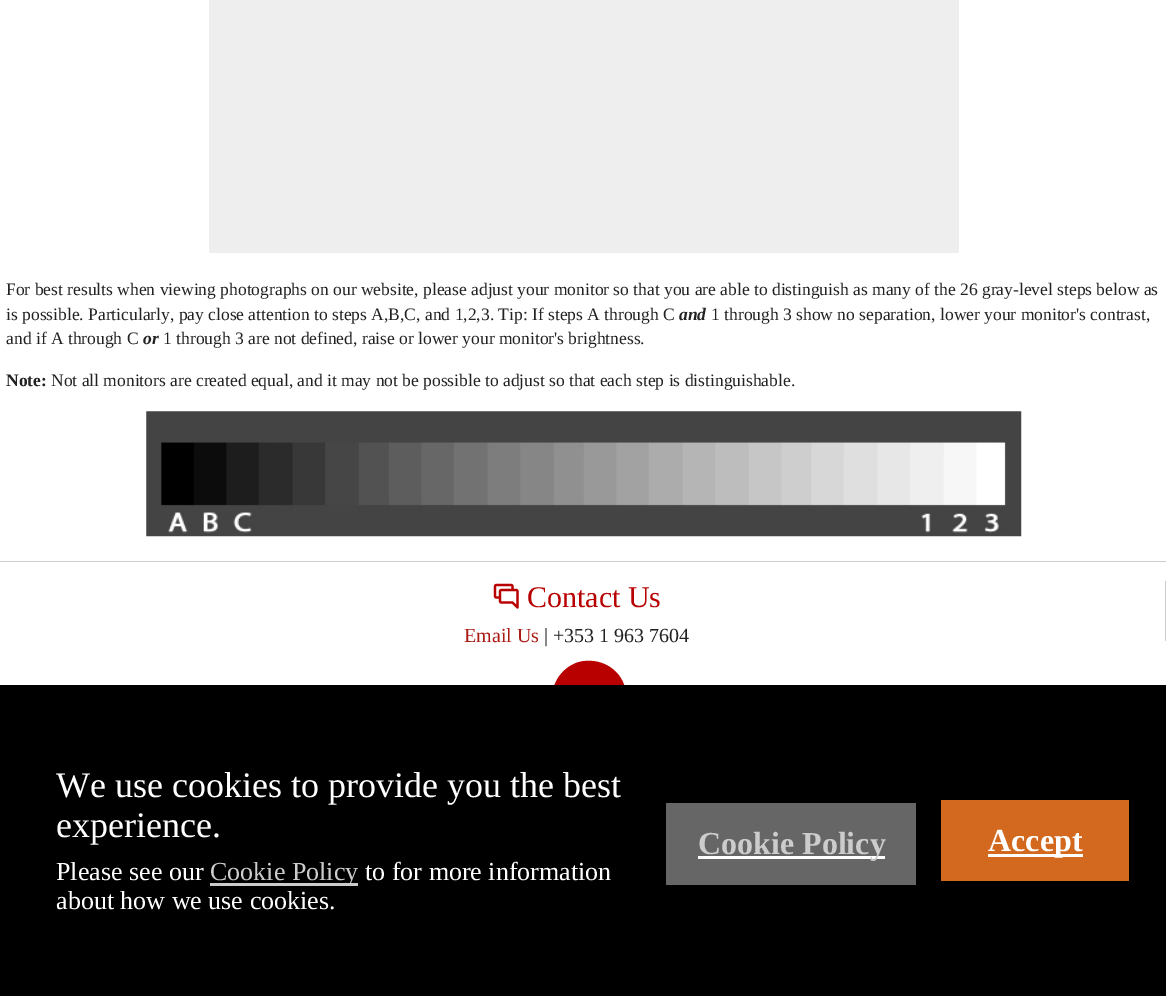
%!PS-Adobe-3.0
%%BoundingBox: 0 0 1166 996
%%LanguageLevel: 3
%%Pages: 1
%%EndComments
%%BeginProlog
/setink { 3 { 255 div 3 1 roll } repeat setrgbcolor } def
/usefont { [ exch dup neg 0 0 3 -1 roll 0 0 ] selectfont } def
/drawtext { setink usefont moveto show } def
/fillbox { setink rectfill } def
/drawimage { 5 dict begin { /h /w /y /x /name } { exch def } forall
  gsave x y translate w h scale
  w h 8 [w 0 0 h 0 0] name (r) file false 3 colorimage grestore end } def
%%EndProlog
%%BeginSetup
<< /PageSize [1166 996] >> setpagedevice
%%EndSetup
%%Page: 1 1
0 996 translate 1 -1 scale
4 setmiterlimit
0 0 1166 996 255 255 255 fillbox
209 0 750 253 238 238 238 fillbox
(For best results when viewing photographs on our website, please adjust your monitor so that you are able to distinguish as many of the 26 gray-level steps below as) 6 295 /LiberationSerif-Regular 17.5 34 34 34 drawtext
(is possible. Particularly, pay close attention to steps A,B,C, and 1,2,3. Tip: If steps A through C) 6 320 /LiberationSerif-Regular 17.5 34 34 34 drawtext
(and) 679 320 /LiberationSerif-BoldItalic 17.5 34 34 34 drawtext
(1 through 3 show no separation, lower your monitor's contrast,) 711 320 /LiberationSerif-Regular 17.5 34 34 34 drawtext
(and if A through C) 6 344 /LiberationSerif-Regular 17.5 34 34 34 drawtext
(or) 143 344 /LiberationSerif-BoldItalic 17.5 34 34 34 drawtext
(1 through 3 are not defined, raise or lower your monitor's brightness.) 163 344 /LiberationSerif-Regular 17.5 34 34 34 drawtext
(Note:) 6 386 /LiberationSerif-Bold 17.5 34 34 34 drawtext
(Not all monitors are created equal, and it may not be possible to adjust so that each step is distinguishable.) 51 386 /LiberationSerif-Regular 17.5 34 34 34 drawtext
(assets/img1.rgb) 146 411 876 126 drawimage
0 561 1166 1 204 204 204 fillbox
1165 581 1 60 204 204 204 fillbox
(assets/img2.rgb) 493 583 26 26 drawimage
(Contact Us) 527 607 /LiberationSerif-Regular 30 185 0 0 drawtext
(Email Us) 464 642 /LiberationSerif-Regular 20 170 27 20 drawtext
(| +353 1 963 7604) 544 642 /LiberationSerif-Regular 20 34 34 34 drawtext
185 0 0 setink
579 662 moveto 599 657 620 668 625 688 curveto 631 708 620 729 600 734 curveto 580 740 559 729 553 709 curveto 548 689 559 668 579 662 curveto closepath fill
0 685 1166 311 0 0 0 fillbox
(We use cookies to provide you the best) 56 797 /LiberationSerif-Regular 36 255 255 255 drawtext
(experience.) 56 837 /LiberationSerif-Regular 36 255 255 255 drawtext
(Please see our) 56 880 /LiberationSerif-Regular 26 255 255 255 drawtext
210 883 148 3 204 204 204 fillbox
(Cookie Policy) 210 880 /LiberationSerif-Regular 26 204 204 204 drawtext
(to for more information) 365 880 /LiberationSerif-Regular 26 255 255 255 drawtext
(about how we use cookies.) 56 909 /LiberationSerif-Regular 26 255 255 255 drawtext
666 803 250 82 102 102 102 fillbox
698 856 187 3 255 255 255 fillbox
(Cookie Policy) 698 854 /LiberationSerif-Bold 32 204 204 204 drawtext
941 800 188 81 210 105 30 fillbox
988 854 95 3 255 255 255 fillbox
(Accept) 988 851 /LiberationSerif-Bold 32 255 255 255 drawtext
showpage
%%EOF
